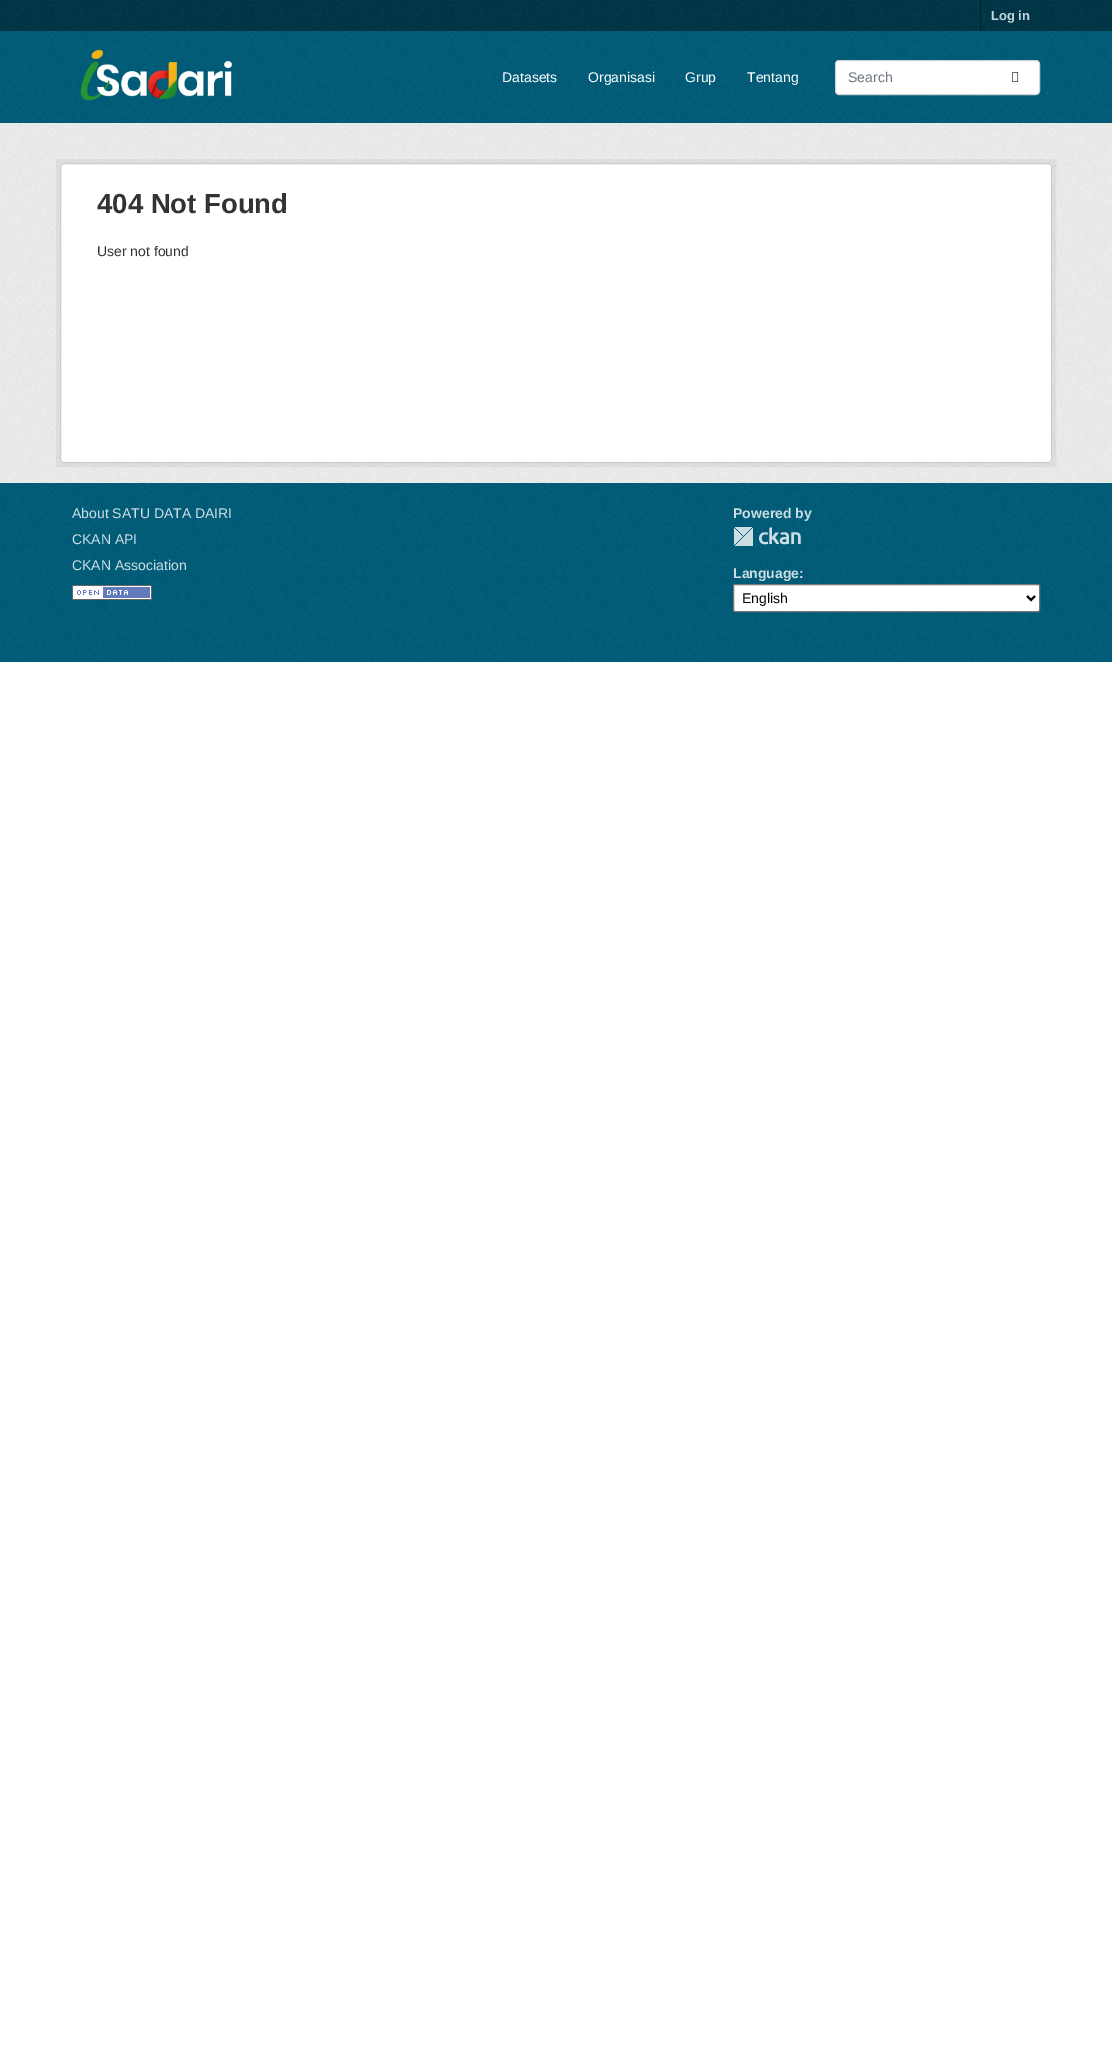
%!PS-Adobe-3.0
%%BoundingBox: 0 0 1112 2057
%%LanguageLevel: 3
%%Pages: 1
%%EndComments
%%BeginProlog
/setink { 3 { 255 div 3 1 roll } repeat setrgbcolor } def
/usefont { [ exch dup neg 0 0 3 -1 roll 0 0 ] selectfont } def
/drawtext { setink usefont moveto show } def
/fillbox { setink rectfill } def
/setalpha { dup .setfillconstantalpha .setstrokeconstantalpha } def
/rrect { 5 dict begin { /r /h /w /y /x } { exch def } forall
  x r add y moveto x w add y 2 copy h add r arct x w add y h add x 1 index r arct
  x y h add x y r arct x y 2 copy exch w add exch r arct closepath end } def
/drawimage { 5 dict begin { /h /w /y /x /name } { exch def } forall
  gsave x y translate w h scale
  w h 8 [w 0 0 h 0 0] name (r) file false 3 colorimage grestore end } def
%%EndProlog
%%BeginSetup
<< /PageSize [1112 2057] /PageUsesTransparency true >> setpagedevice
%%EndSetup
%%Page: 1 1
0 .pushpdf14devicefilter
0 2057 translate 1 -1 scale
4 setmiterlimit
0 0 1112 2057 255 255 255 fillbox
0 0 1112 31 0 54 71 fillbox
(assets/img1.rgb) 0 0 1112 31 drawimage
980 0 1 31 0 35 46 fillbox
(Log in) 991 20 /LiberationSans-Bold 13 191 215 222 drawtext
0 31 1112 92 0 93 122 fillbox
(assets/img2.rgb) 0 31 1112 92 drawimage
(assets/img3.rgb) 80 49 153 52 drawimage
(Datasets) 502 82 /LiberationSans-Regular 14 255 255 255 drawtext
(Organisasi) 588 82 /LiberationSans-Regular 14 255 255 255 drawtext
(Grup) 685 82 /LiberationSans-Regular 14 255 255 255 drawtext
(Tentang) 747 82 /LiberationSans-Regular 14 255 255 255 drawtext
835.5 60.5 204 34 3.5 rrect gsave fill grestore
206 212 218 setink
stroke
(Search) 848 82 /LiberationSans-Regular 14 108 117 125 drawtext
(assets/img4.rgb) 1012 72 7 10 drawimage
0 123 1112 360 238 238 238 fillbox
(assets/img5.rgb) 0 123 1112 360 drawimage
0.05 setalpha
0 0 0 setink
4 setlinewidth
58 161 996 304 rectstroke
1 setalpha
255 255 255 setink
60.5 163.5 991 299 3.5 rrect gsave fill grestore
204 204 204 setink
1 setlinewidth
stroke
(404 Not Found) 97 213 /LiberationSans-Bold 27.5 51 51 51 drawtext
(User not found) 97 256 /LiberationSans-Regular 14 51 51 51 drawtext
0 483 1112 179 0 93 122 fillbox
(assets/img6.rgb) 0 483 1112 179 drawimage
(About SATU DATA DAIRI) 72 518 /LiberationSans-Regular 14 204 222 227 drawtext
(CKAN API) 72 544 /LiberationSans-Regular 14 204 222 227 drawtext
(CKAN Association) 72 570 /LiberationSans-Regular 14 204 222 227 drawtext
(assets/img7.rgb) 72 585 80 15 drawimage
(Powered by) 733 518 /LiberationSans-Bold 14 204 222 227 drawtext
(assets/img8.rgb) 734 527 67 19 drawimage
(Language:) 733 578 /LiberationSans-Bold 14 204 222 227 drawtext
255 255 255 setink
733.5 584.5 306 27 1.5 rrect gsave fill grestore
118 118 118 setink
stroke
0 0 0 setink
2 setlinewidth
1027 596 moveto 1031 600 lineto 1035 596 lineto stroke
(English) 742 603 /LiberationSans-Regular 14 0 0 0 drawtext
.poppdf14devicefilter showpage
%%EOF
